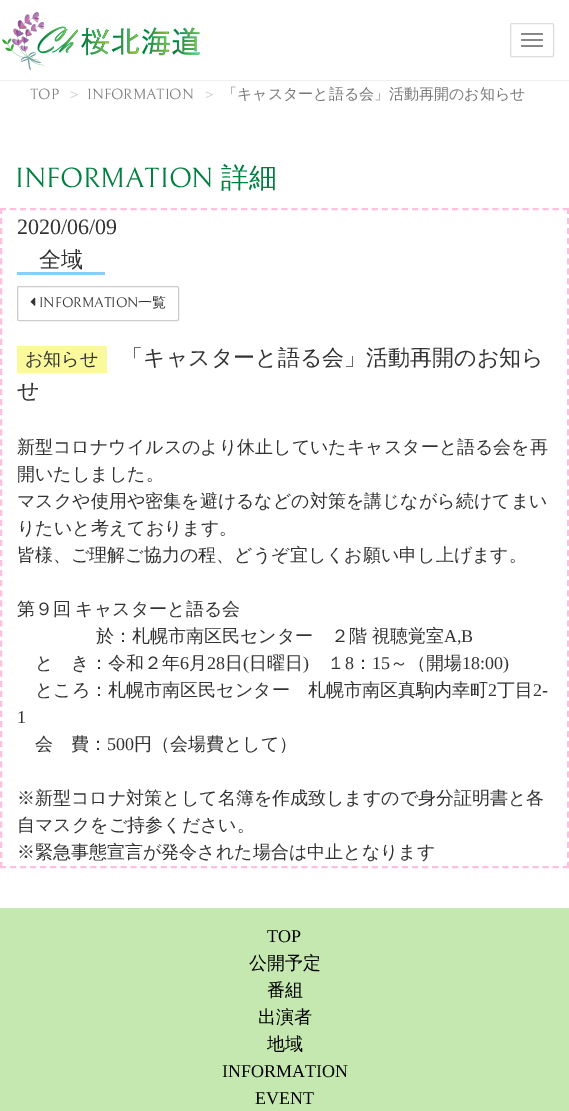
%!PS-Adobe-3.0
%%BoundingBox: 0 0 569 1111
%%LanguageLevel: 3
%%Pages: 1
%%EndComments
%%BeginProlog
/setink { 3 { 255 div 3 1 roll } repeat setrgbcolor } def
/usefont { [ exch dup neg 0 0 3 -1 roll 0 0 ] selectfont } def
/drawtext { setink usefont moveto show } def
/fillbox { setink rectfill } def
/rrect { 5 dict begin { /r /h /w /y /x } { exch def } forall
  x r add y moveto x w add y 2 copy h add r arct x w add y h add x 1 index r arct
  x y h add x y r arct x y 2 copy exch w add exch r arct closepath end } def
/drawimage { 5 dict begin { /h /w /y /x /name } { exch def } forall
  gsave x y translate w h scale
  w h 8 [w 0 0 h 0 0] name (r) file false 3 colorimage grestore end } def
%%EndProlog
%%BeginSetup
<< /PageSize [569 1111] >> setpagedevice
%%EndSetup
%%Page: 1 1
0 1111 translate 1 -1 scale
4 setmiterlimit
0 0 569 1111 255 255 255 fillbox
0 80 569 1 238 238 238 fillbox
(assets/img1.rgb) 2 11 198 60 drawimage
221 221 221 setink
510.5 23.5 43 33 1.5 rrect stroke
136 136 136 setink
521 33 22 2 1 rrect fill
521 39 22 2 1 rrect fill
521 45 22 2 1 rrect fill
(TOP) 30 99 /Bellefair-Regular 15 128 128 128 drawtext
(＞) 67 99 /WenQuanYiZenHei-Medium 15 204 204 204 drawtext
(INFORMATION) 87 99 /Bellefair-Regular 15 128 128 128 drawtext
(＞) 202 99 /WenQuanYiZenHei-Medium 15 204 204 204 drawtext
(「キャスターと語る会」活動再開のお知らせ) 222 99 /WenQuanYiZenHei-Medium 15 119 119 119 drawtext
(INFORMATION) 15 187 /Bellefair-Regular 28 0 128 64 drawtext
(詳細) 221 187 /WenQuanYiZenHei-Medium 28 0 128 64 drawtext
255 191 223 setink
2 setlinewidth
[6 4.05] 0 setdash
0 209 moveto 569 209 lineto stroke
[6 4.06] 0 setdash
568 208 moveto 568 868 lineto stroke
[6 4.05] 0 setdash
0 867 moveto 569 867 lineto stroke
[6 4.06] 0 setdash
1 208 moveto 1 868 lineto stroke
(2020/06/09) 17 234 /LiberationSerif-Regular 22 51 51 51 drawtext
(全域) 39 267 /WenQuanYiZenHei-Medium 22 51 51 51 drawtext
17 272 88 3 135 206 250 fillbox
204 204 204 setink
1 setlinewidth
[] 0 setdash
17.5 286.5 161 34 1.5 rrect stroke
(assets/img2.rgb) 30 297 6 9 drawimage
(INFORMATION) 39 307 /Bellefair-Regular 14 51 51 51 drawtext
(一覧) 138 307 /WenQuanYiZenHei-Medium 14 51 51 51 drawtext
17 346 90 27 250 250 156 fillbox
(お知らせ) 25 365 /WenQuanYiZenHei-Medium 18 51 51 51 drawtext
(「キャスターと語る会」活動再開のお知ら) 121 365 /WenQuanYiZenHei-Medium 22 51 51 51 drawtext
(せ) 17 398 /WenQuanYiZenHei-Medium 22 51 51 51 drawtext
(新型コロナウイルスのより休止していたキャスターと語る会を再) 17 453 /WenQuanYiZenHei-Medium 18 51 51 51 drawtext
(開いたしました。) 17 480 /WenQuanYiZenHei-Medium 18 51 51 51 drawtext
(マスクや使用や密集を避けるなどの対策を講じながら続けてまい) 17 507 /WenQuanYiZenHei-Medium 18 51 51 51 drawtext
(りたいと考えております。) 17 534 /WenQuanYiZenHei-Medium 18 51 51 51 drawtext
(皆様、ご理解ご協力の程、どうぞ宜しくお願い申し上げます。) 17 561 /WenQuanYiZenHei-Medium 18 51 51 51 drawtext
17 615 moveto -1 0 32 (第９回 キャスターと語る会) widthshow
96 642 moveto -1 0 32 (於：札幌市南区民センター　２階 視聴覚室) widthshow
(A,B) 444 642 /LiberationSerif-Regular 18 51 51 51 drawtext
(と　き：令和２年) 35 669 /WenQuanYiZenHei-Medium 18 51 51 51 drawtext
(6) 180 669 /LiberationSerif-Regular 18 51 51 51 drawtext
(月) 189 669 /WenQuanYiZenHei-Medium 18 51 51 51 drawtext
(28) 207 669 /LiberationSerif-Regular 18 51 51 51 drawtext
(日) 225 669 /WenQuanYiZenHei-Medium 18 51 51 51 drawtext
(\() 243 669 /LiberationSerif-Regular 18 51 51 51 drawtext
(日曜日) 249 669 /WenQuanYiZenHei-Medium 18 51 51 51 drawtext
(\)) 303 669 /LiberationSerif-Regular 18 51 51 51 drawtext
(１) 327 669 /WenQuanYiZenHei-Medium 18 51 51 51 drawtext
(8) 345 669 /LiberationSerif-Regular 18 51 51 51 drawtext
(：) 354 669 /WenQuanYiZenHei-Medium 18 51 51 51 drawtext
(15) 372 669 /LiberationSerif-Regular 18 51 51 51 drawtext
(～（開場) 390 669 /WenQuanYiZenHei-Medium 18 51 51 51 drawtext
(18:00\)) 462 669 /LiberationSerif-Regular 18 51 51 51 drawtext
(ところ：札幌市南区民センター　札幌市南区真駒内幸町) 35 696 /WenQuanYiZenHei-Medium 18 51 51 51 drawtext
(2) 488 696 /LiberationSerif-Regular 18 51 51 51 drawtext
(丁目) 497 696 /WenQuanYiZenHei-Medium 18 51 51 51 drawtext
(2-) 533 696 /LiberationSerif-Regular 18 51 51 51 drawtext
(1) 17 723 /LiberationSerif-Regular 18 51 51 51 drawtext
(会　費：) 35 750 /WenQuanYiZenHei-Medium 18 51 51 51 drawtext
(500) 107 750 /LiberationSerif-Regular 18 51 51 51 drawtext
(円（会場費として）) 134 750 /WenQuanYiZenHei-Medium 18 51 51 51 drawtext
(※新型コロナ対策として名簿を作成致しますので身分証明書と各) 17 804 /WenQuanYiZenHei-Medium 18 51 51 51 drawtext
(自マスクをご持参ください。) 17 831 /WenQuanYiZenHei-Medium 18 51 51 51 drawtext
(※緊急事態宣言が発令された場合は中止となります) 17 858 /WenQuanYiZenHei-Medium 18 51 51 51 drawtext
0 908 569 203 196 232 176 fillbox
(TOP) 267 942 /LiberationSerif-Regular 18 0 0 0 drawtext
(公開予定) 249 969 /WenQuanYiZenHei-Medium 18 0 0 0 drawtext
(番組) 267 996 /WenQuanYiZenHei-Medium 18 0 0 0 drawtext
(出演者) 258 1023 /WenQuanYiZenHei-Medium 18 0 0 0 drawtext
(地域) 267 1050 /WenQuanYiZenHei-Medium 18 0 0 0 drawtext
(INFORMATION) 222 1077 /LiberationSerif-Regular 18 0 0 0 drawtext
(EVENT) 255 1104 /LiberationSerif-Regular 18 0 0 0 drawtext
showpage
%%EOF
